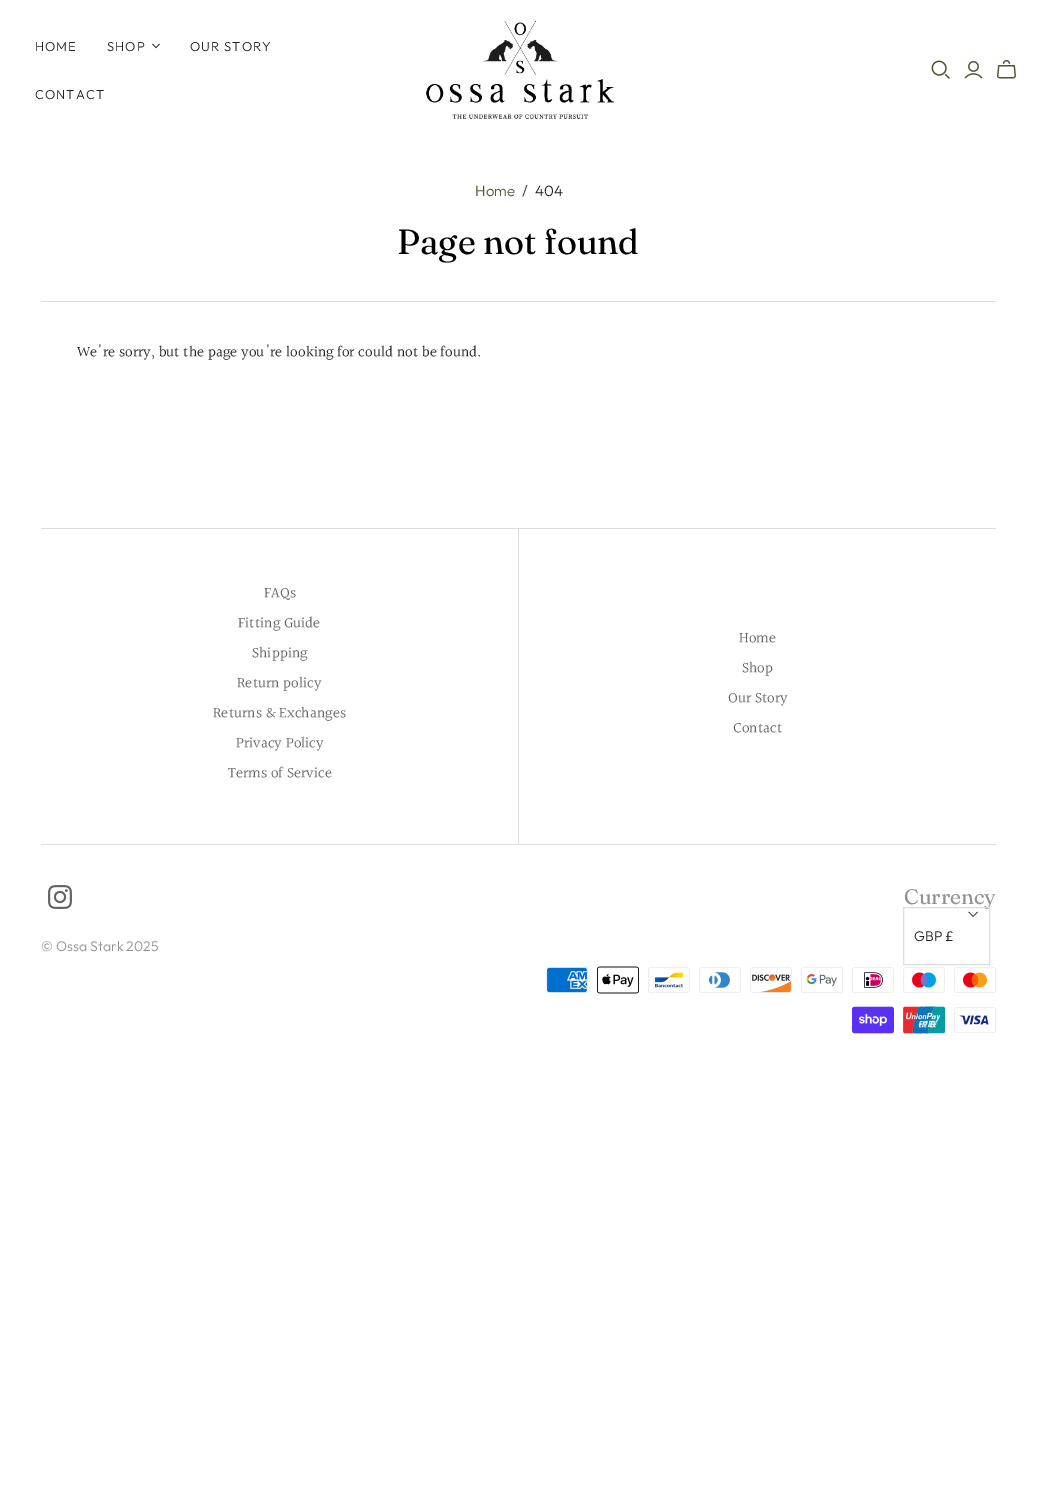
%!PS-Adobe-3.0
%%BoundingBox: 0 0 1037 1488
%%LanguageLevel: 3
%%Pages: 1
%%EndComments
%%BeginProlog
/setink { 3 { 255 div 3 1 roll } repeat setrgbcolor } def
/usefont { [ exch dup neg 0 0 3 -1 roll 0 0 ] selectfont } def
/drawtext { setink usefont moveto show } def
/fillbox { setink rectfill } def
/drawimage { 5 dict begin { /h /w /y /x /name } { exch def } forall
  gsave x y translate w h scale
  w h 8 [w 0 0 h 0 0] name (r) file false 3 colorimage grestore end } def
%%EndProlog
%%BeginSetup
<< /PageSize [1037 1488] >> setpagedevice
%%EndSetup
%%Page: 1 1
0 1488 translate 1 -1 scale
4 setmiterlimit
0 0 1037 1488 255 255 255 fillbox
/Outfit-Light 13 usefont
34 34 34 setink
35 51 moveto 1 0 (HOME) ashow
107 51 moveto 1 0 (SHOP) ashow
(assets/img1.rgb) 152 43 8 6 drawimage
190 51 moveto 1 0 (OUR STORY) ashow
35 99 moveto 1 0 (CONTACT) ashow
(assets/img2.rgb) 426 20 188 99 drawimage
(assets/img3.rgb) 931 60 19 19 drawimage
(assets/img4.rgb) 964 61 19 18 drawimage
(assets/img5.rgb) 997 60 19 19 drawimage
(Home) 475 196 /Outfit-Light 15 83 83 53 drawtext
(/) 522 196 /Outfit-Light 15 34 34 34 drawtext
(404) 535 196 /Outfit-Light 15 34 34 34 drawtext
41 301 955 1 221 221 221 fillbox
(Page not found) 397 254 /Fraunces-Regular 35 0 0 0 drawtext
(We're sorry, but the page you're looking for could not be found.) 77 357 /Halant-Regular 15 34 34 34 drawtext
41 528 955 1 221 221 221 fillbox
41 844 955 1 221 221 221 fillbox
(FAQs) 264 598 /Halant-Regular 15 100 100 100 drawtext
(Fitting Guide) 238 628 /Halant-Regular 15 100 100 100 drawtext
(Shipping) 252 658 /Halant-Regular 15 100 100 100 drawtext
(Return policy) 237 688 /Halant-Regular 15 100 100 100 drawtext
(Returns & Exchanges) 213 718 /Halant-Regular 15 100 100 100 drawtext
(Privacy Policy) 236 748 /Halant-Regular 15 100 100 100 drawtext
(Terms of Service) 228 778 /Halant-Regular 15 100 100 100 drawtext
518 529 1 315 221 221 221 fillbox
(Home) 739 643 /Halant-Regular 15 100 100 100 drawtext
(Shop) 742 673 /Halant-Regular 15 100 100 100 drawtext
(Our Story) 728 703 /Halant-Regular 15 100 100 100 drawtext
(Contact) 733 733 /Halant-Regular 15 100 100 100 drawtext
(Currency) 904 904 /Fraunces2-Regular 21 145 145 145 drawtext
221 221 221 setink
903.5 907.5 86 57 rectstroke
(assets/img6.rgb) 968 911 10 6 drawimage
(GBP £) 914 941 /Outfit-Light 14 34 34 34 drawtext
(assets/img7.rgb) 546 967 42 26 drawimage
(assets/img8.rgb) 597 966 42 28 drawimage
(assets/img9.rgb) 648 967 42 26 drawimage
(assets/img10.rgb) 699 967 42 26 drawimage
(assets/img11.rgb) 750 967 42 26 drawimage
(assets/img12.rgb) 801 967 42 26 drawimage
(assets/img13.rgb) 852 967 42 26 drawimage
(assets/img14.rgb) 903 967 42 26 drawimage
(assets/img15.rgb) 954 967 42 26 drawimage
(assets/img16.rgb) 852 1006 42 28 drawimage
(assets/img17.rgb) 903 1006 42 28 drawimage
(assets/img18.rgb) 954 1007 42 26 drawimage
(assets/img19.rgb) 48 885 24 24 drawimage
(© Ossa Stark 2025) 41 951 /Outfit-Light 14 145 145 145 drawtext
showpage
%%EOF
